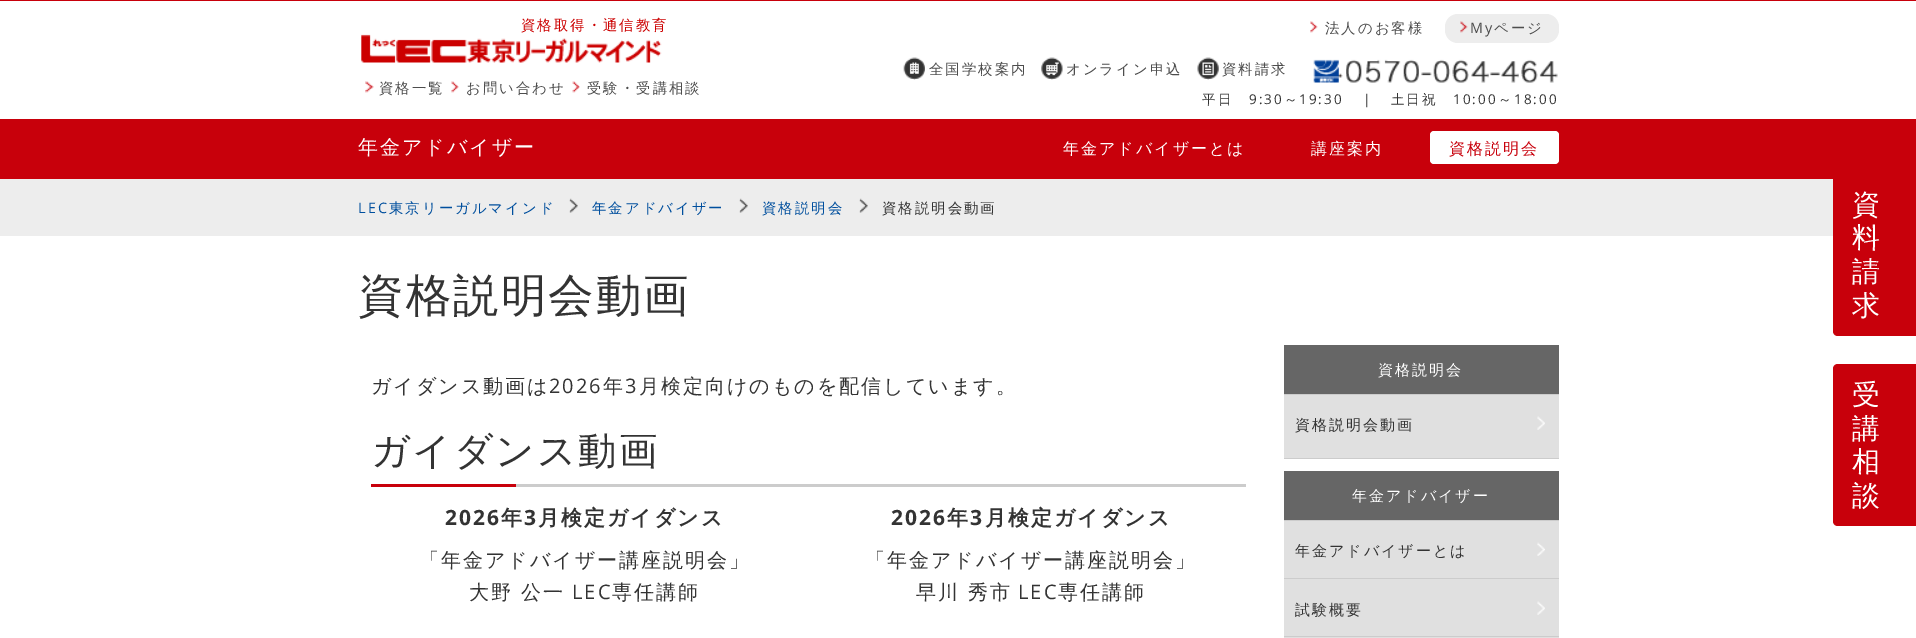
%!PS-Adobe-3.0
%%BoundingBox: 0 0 1916 638
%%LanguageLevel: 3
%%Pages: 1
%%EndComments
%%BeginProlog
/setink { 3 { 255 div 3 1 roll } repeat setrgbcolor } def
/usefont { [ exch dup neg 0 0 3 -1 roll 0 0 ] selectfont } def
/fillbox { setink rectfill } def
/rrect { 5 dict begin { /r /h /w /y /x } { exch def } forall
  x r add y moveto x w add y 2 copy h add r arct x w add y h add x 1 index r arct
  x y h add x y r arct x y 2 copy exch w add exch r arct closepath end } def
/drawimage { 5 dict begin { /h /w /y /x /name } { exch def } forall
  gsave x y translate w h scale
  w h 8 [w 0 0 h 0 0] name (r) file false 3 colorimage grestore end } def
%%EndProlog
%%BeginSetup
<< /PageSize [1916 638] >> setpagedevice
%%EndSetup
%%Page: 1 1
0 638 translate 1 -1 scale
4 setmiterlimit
0 0 1916 638 255 255 255 fillbox
0 0 1916 1 200 0 11 fillbox
/WenQuanYiZenHei-Medium 14.4 usefont
204 0 0 setink
521 30 moveto 2 0 (資格取得・通信教育) ashow
(assets/img1.rgb) 1310 21 8 12 drawimage
77 77 77 setink
1325 33 moveto 2 0 (法人のお客様) ashow
237 237 237 setink
1445 14 114 29 13 rrect fill
(assets/img2.rgb) 1460 21 8 12 drawimage
/OpenSans-Regular 14.4 usefont
77 77 77 setink
1470 33 moveto 2 0 (My) ashow
/WenQuanYiZenHei-Medium 14.4 usefont
1494 33 moveto 2 0 (ページ) ashow
(assets/img3.rgb) 903 57 22 23 drawimage
929 74 moveto 2 0 (全国学校案内) ashow
(assets/img4.rgb) 1041 57 22 23 drawimage
1066 74 moveto 2 0 (オンライン申込) ashow
(assets/img5.rgb) 1197 57 22 23 drawimage
1222 74 moveto 2 0 (資料請求) ashow
(assets/img6.rgb) 1313 59 245 24 drawimage
(assets/img7.rgb) 365 81 9 12 drawimage
379 93 moveto 2 0 (資格一覧) ashow
(assets/img8.rgb) 451 81 8 12 drawimage
466 93 moveto 2 0 (お問い合わせ) ashow
(assets/img9.rgb) 572 81 8 12 drawimage
587 93 moveto 2 0 (受験・受講相談) ashow
(assets/img10.rgb) 361 34 301 29 drawimage
/WenQuanYiZenHei-Medium 13.5 usefont
51 51 51 setink
1202 104 moveto 2 0 (平日) ashow
/OpenSans-Regular 13.5 usefont
1249 104 moveto 2 0 (9:30) ashow
/WenQuanYiZenHei-Medium 13.5 usefont
1284 104 moveto 2 0 (～) ashow
/OpenSans-Regular 13.5 usefont
1299 104 moveto 2 0 (19:30) ashow
/WenQuanYiZenHei-Medium 13.5 usefont
1360 104 moveto 2 0 (｜　土日祝) ashow
/OpenSans-Regular 13.5 usefont
1453 104 moveto 2 0 (10:00) ashow
/WenQuanYiZenHei-Medium 13.5 usefont
1498 104 moveto 2 0 (～) ashow
/OpenSans-Regular 13.5 usefont
1514 104 moveto 2 0 (18:00) ashow
0 119 1916 60 200 0 11 fillbox
/WenQuanYiZenHei-Medium 20 usefont
255 255 255 setink
358 154 moveto 2 0 (年金アドバイザー) ashow
/WenQuanYiZenHei-Medium 16 usefont
1063 154 moveto 2 0 (年金アドバイザーとは) ashow
1311 154 moveto 2 0 (講座案内) ashow
1430 131 129 33 4 rrect fill
200 0 11 setink
1449 154 moveto 2 0 (資格説明会) ashow
/WenQuanYiZenHei-Medium 45.5 usefont
51 51 51 setink
358 311 moveto 2 0 (資格説明会動画) ashow
200 0 11 setink
1838 174 moveto 1916 174 lineto 1916 336 lineto 1838 336 lineto 1835 336 1833 334 1833 331 curveto 1833 179 lineto 1833 176 1835 174 1838 174 curveto closepath fill
/WenQuanYiZenHei-Medium 28 usefont
255 255 255 setink
1852 214 moveto 2 0 (資) ashow
1852 247 moveto 2 0 (料) ashow
1852 281 moveto 2 0 (請) ashow
1852 315 moveto 2 0 (求) ashow
200 0 11 setink
1838 364 moveto 1916 364 lineto 1916 526 lineto 1838 526 lineto 1835 526 1833 524 1833 521 curveto 1833 369 lineto 1833 366 1835 364 1838 364 curveto closepath fill
255 255 255 setink
1852 404 moveto 2 0 (受) ashow
1852 438 moveto 2 0 (講) ashow
1852 471 moveto 2 0 (相) ashow
1852 505 moveto 2 0 (談) ashow
/WenQuanYiZenHei-Medium 20 usefont
51 51 51 setink
371 393 moveto 2 0 (ガイダンス動画は) ashow
/OpenSans-Regular 20 usefont
549 393 moveto 2 0 (2026) ashow
/WenQuanYiZenHei-Medium 20 usefont
603 393 moveto 2 0 (年) ashow
/OpenSans-Regular 20 usefont
625 393 moveto 2 0 (3) ashow
/WenQuanYiZenHei-Medium 20 usefont
639 393 moveto 2 0 (月検定向けのものを配信しています。) ashow
516 484 730 3 204 204 204 fillbox
/WenQuanYiZenHei-Medium 38.5 usefont
51 51 51 setink
371 464 moveto 2 0 (ガイダンス動画) ashow
371 484 145 3 200 0 11 fillbox
/OpenSans-Bold 21 usefont
51 51 51 setink
445 525 moveto 2 0 (2026) ashow
/WenQuanYiZenHei-Bold 21 usefont
501 525 moveto 2 0 (年) ashow
/OpenSans-Bold 21 usefont
524 525 moveto 2 0 (3) ashow
/WenQuanYiZenHei-Bold 21 usefont
538 525 moveto 2 0 (月検定ガイダンス) ashow
/WenQuanYiZenHei-Medium 20 usefont
419 567 moveto 2 0 (「年金アドバイザー講座説明会」) ashow
469 599 moveto 2 0 (大野 公一) ashow
/OpenSans-Regular 20 usefont
572 599 moveto 2 0 (LEC) ashow
/WenQuanYiZenHei-Medium 20 usefont
612 599 moveto 2 0 (専任講師) ashow
/OpenSans-Bold 21 usefont
891 525 moveto 2 0 (2026) ashow
/WenQuanYiZenHei-Bold 21 usefont
947 525 moveto 2 0 (年) ashow
/OpenSans-Bold 21 usefont
970 525 moveto 2 0 (3) ashow
/WenQuanYiZenHei-Bold 21 usefont
985 525 moveto 2 0 (月検定ガイダンス) ashow
/WenQuanYiZenHei-Medium 20 usefont
865 567 moveto 2 0 (「年金アドバイザー講座説明会」) ashow
916 599 moveto 2 0 (早川 秀市) ashow
/OpenSans-Regular 20 usefont
1018 599 moveto 2 0 (LEC) ashow
/WenQuanYiZenHei-Medium 20 usefont
1058 599 moveto 2 0 (専任講師) ashow
1284 395 275 63 224 224 224 fillbox
1284 345 275 49 102 102 102 fillbox
1284 394 275 1 204 204 204 fillbox
/WenQuanYiZenHei-Medium 15 usefont
255 255 255 setink
1378 375 moveto 2 0 (資格説明会) ashow
1284 458 275 1 204 204 204 fillbox
51 51 51 setink
1295 430 moveto 2 0 (資格説明会動画) ashow
(assets/img11.rgb) 1537 416 8 14 drawimage
1284 521 275 117 224 224 224 fillbox
1284 471 275 49 102 102 102 fillbox
1284 520 275 1 204 204 204 fillbox
255 255 255 setink
1352 501 moveto 2 0 (年金アドバイザー) ashow
1284 578 275 1 204 204 204 fillbox
51 51 51 setink
1295 556 moveto 2 0 (年金アドバイザーとは) ashow
(assets/img12.rgb) 1537 542 8 14 drawimage
1284 636 275 1 204 204 204 fillbox
51 51 51 setink
1295 615 moveto 2 0 (試験概要) ashow
(assets/img11.rgb) 1537 601 8 14 drawimage
0 179 1833 57 237 237 237 fillbox
/OpenSans-Regular 14.4 usefont
0 79 158 setink
358 213 moveto 2 0 (LEC) ashow
/WenQuanYiZenHei-Medium 14.4 usefont
389 213 moveto 2 0 (東京リーガルマインド) ashow
(assets/img13.rgb) 569 198 9 15 drawimage
592 213 moveto 2 0 (年金アドバイザー) ashow
(assets/img13.rgb) 739 198 9 15 drawimage
762 213 moveto 2 0 (資格説明会) ashow
(assets/img13.rgb) 859 198 9 15 drawimage
51 51 51 setink
882 213 moveto 2 0 (資格説明会動画) ashow
showpage
%%EOF
